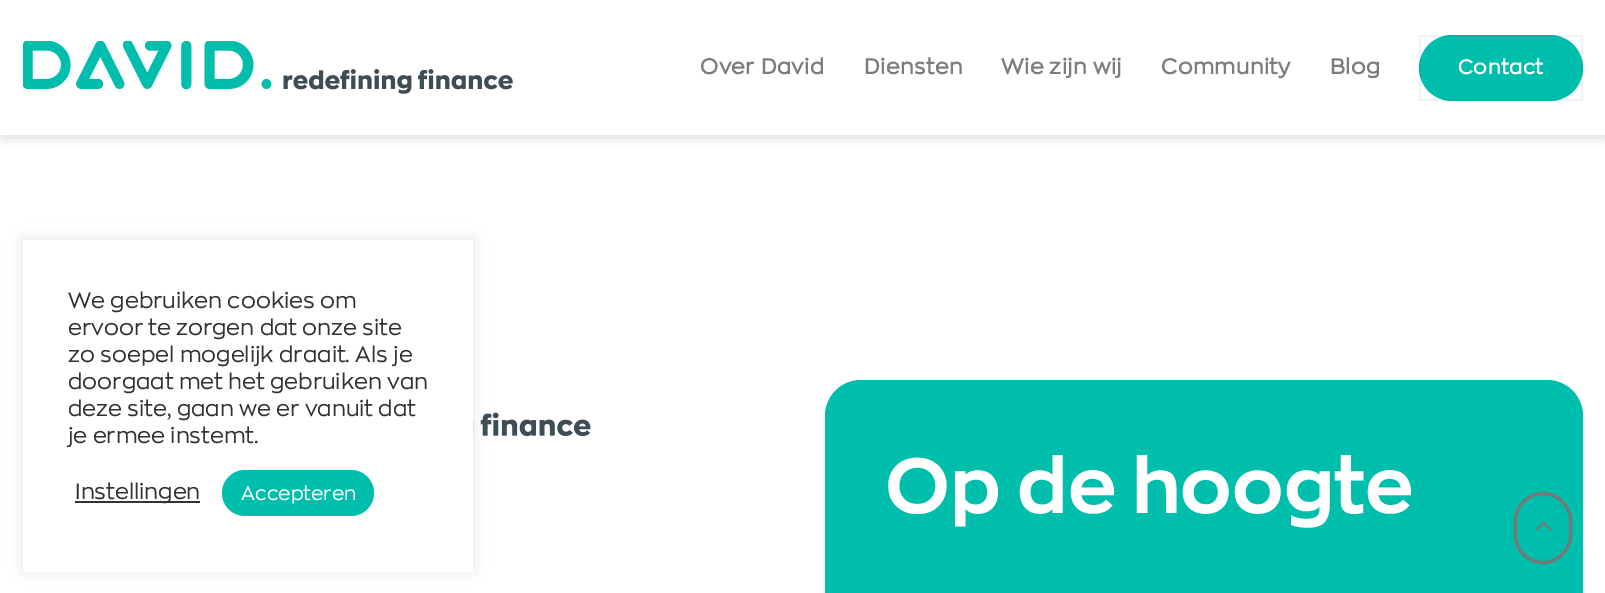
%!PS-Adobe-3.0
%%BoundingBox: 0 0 1605 593
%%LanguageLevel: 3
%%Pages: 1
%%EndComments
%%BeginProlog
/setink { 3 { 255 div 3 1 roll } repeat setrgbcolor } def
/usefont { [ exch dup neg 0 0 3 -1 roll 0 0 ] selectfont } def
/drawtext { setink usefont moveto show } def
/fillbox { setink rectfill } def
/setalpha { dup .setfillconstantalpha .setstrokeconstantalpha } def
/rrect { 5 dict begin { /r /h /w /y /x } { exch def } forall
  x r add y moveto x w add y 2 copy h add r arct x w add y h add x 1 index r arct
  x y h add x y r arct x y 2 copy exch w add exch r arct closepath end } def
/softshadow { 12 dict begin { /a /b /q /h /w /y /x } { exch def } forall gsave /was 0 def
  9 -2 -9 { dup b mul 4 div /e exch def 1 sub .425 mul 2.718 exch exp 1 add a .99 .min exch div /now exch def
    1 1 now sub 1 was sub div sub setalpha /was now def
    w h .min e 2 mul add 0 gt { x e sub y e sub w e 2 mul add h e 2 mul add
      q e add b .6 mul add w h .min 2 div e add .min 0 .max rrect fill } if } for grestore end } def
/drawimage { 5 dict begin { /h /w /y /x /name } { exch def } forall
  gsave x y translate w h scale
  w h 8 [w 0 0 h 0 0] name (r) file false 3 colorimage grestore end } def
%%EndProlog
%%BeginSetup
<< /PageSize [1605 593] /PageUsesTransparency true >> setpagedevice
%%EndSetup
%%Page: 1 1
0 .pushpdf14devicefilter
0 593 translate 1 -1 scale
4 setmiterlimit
0 0 1605 593 255 255 255 fillbox
(assets/img2.rgb) 473 412 118 25 drawimage
172 171 171 setink
23 239 450 331 0 7.5 0.3 softshadow
23 240 450 332 255 255 255 fillbox
(We gebruiken cookies om) 68 308 /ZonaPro-Regular 22 51 51 51 drawtext
(ervoor te zorgen dat onze site) 68 335 /ZonaPro-Regular 22 51 51 51 drawtext
(zo soepel mogelijk draait. Als je) 68 362 /ZonaPro-Regular 22 51 51 51 drawtext
(doorgaat met het gebruiken van) 68 389 /ZonaPro-Regular 22 51 51 51 drawtext
(deze site, gaan we er vanuit dat) 68 416 /ZonaPro-Regular 22 51 51 51 drawtext
(je ermee instemt.) 68 443 /ZonaPro-Regular 22 51 51 51 drawtext
75 501 125 2 51 51 51 fillbox
(Instellingen) 75 499 /ZonaPro-Regular 22 51 51 51 drawtext
0 190 172 setink
222 470 152 46 23 rrect fill
(Accepteren) 241 500 /ZonaPro-Regular 19.5 255 255 255 drawtext
gsave
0 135 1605 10 rectclip
0 0 0 setink
2 2 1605 135 0 7.5 0.15 softshadow
grestore
(assets/img1.rgb) 23 41 490 53 drawimage
/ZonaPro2-Bold 21.5 usefont
125 125 125 setink
700 74 moveto 0.5 0 (Over David) ashow
864 74 moveto 0.5 0 (Diensten) ashow
1001 74 moveto 0.5 0 (Wie zijn wij) ashow
1161 74 moveto 0.5 0 (Community) ashow
1330 74 moveto 0.5 0 (Blog) ashow
0 190 172 setink
1419 35 164 66 33 rrect fill
0.05 setalpha
0 0 0 setink
2 setlinewidth
1420 36 162 64 rectstroke
/ZonaPro2-Bold 20 usefont
1 setalpha
255 255 255 setink
1458 74 moveto 0.5 0 (Contact) ashow
0 190 172 setink
825 380 758 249 36 rrect fill
(Op de hoogte) 885 513 /ZonaPro-Bold 76.75 255 255 255 drawtext
119 119 119 setink
3 setlinewidth
1515.5 493.5 55 69 27.5 rrect stroke
(assets/img3.rgb) 1535 521 17 10 drawimage
.poppdf14devicefilter showpage
%%EOF
